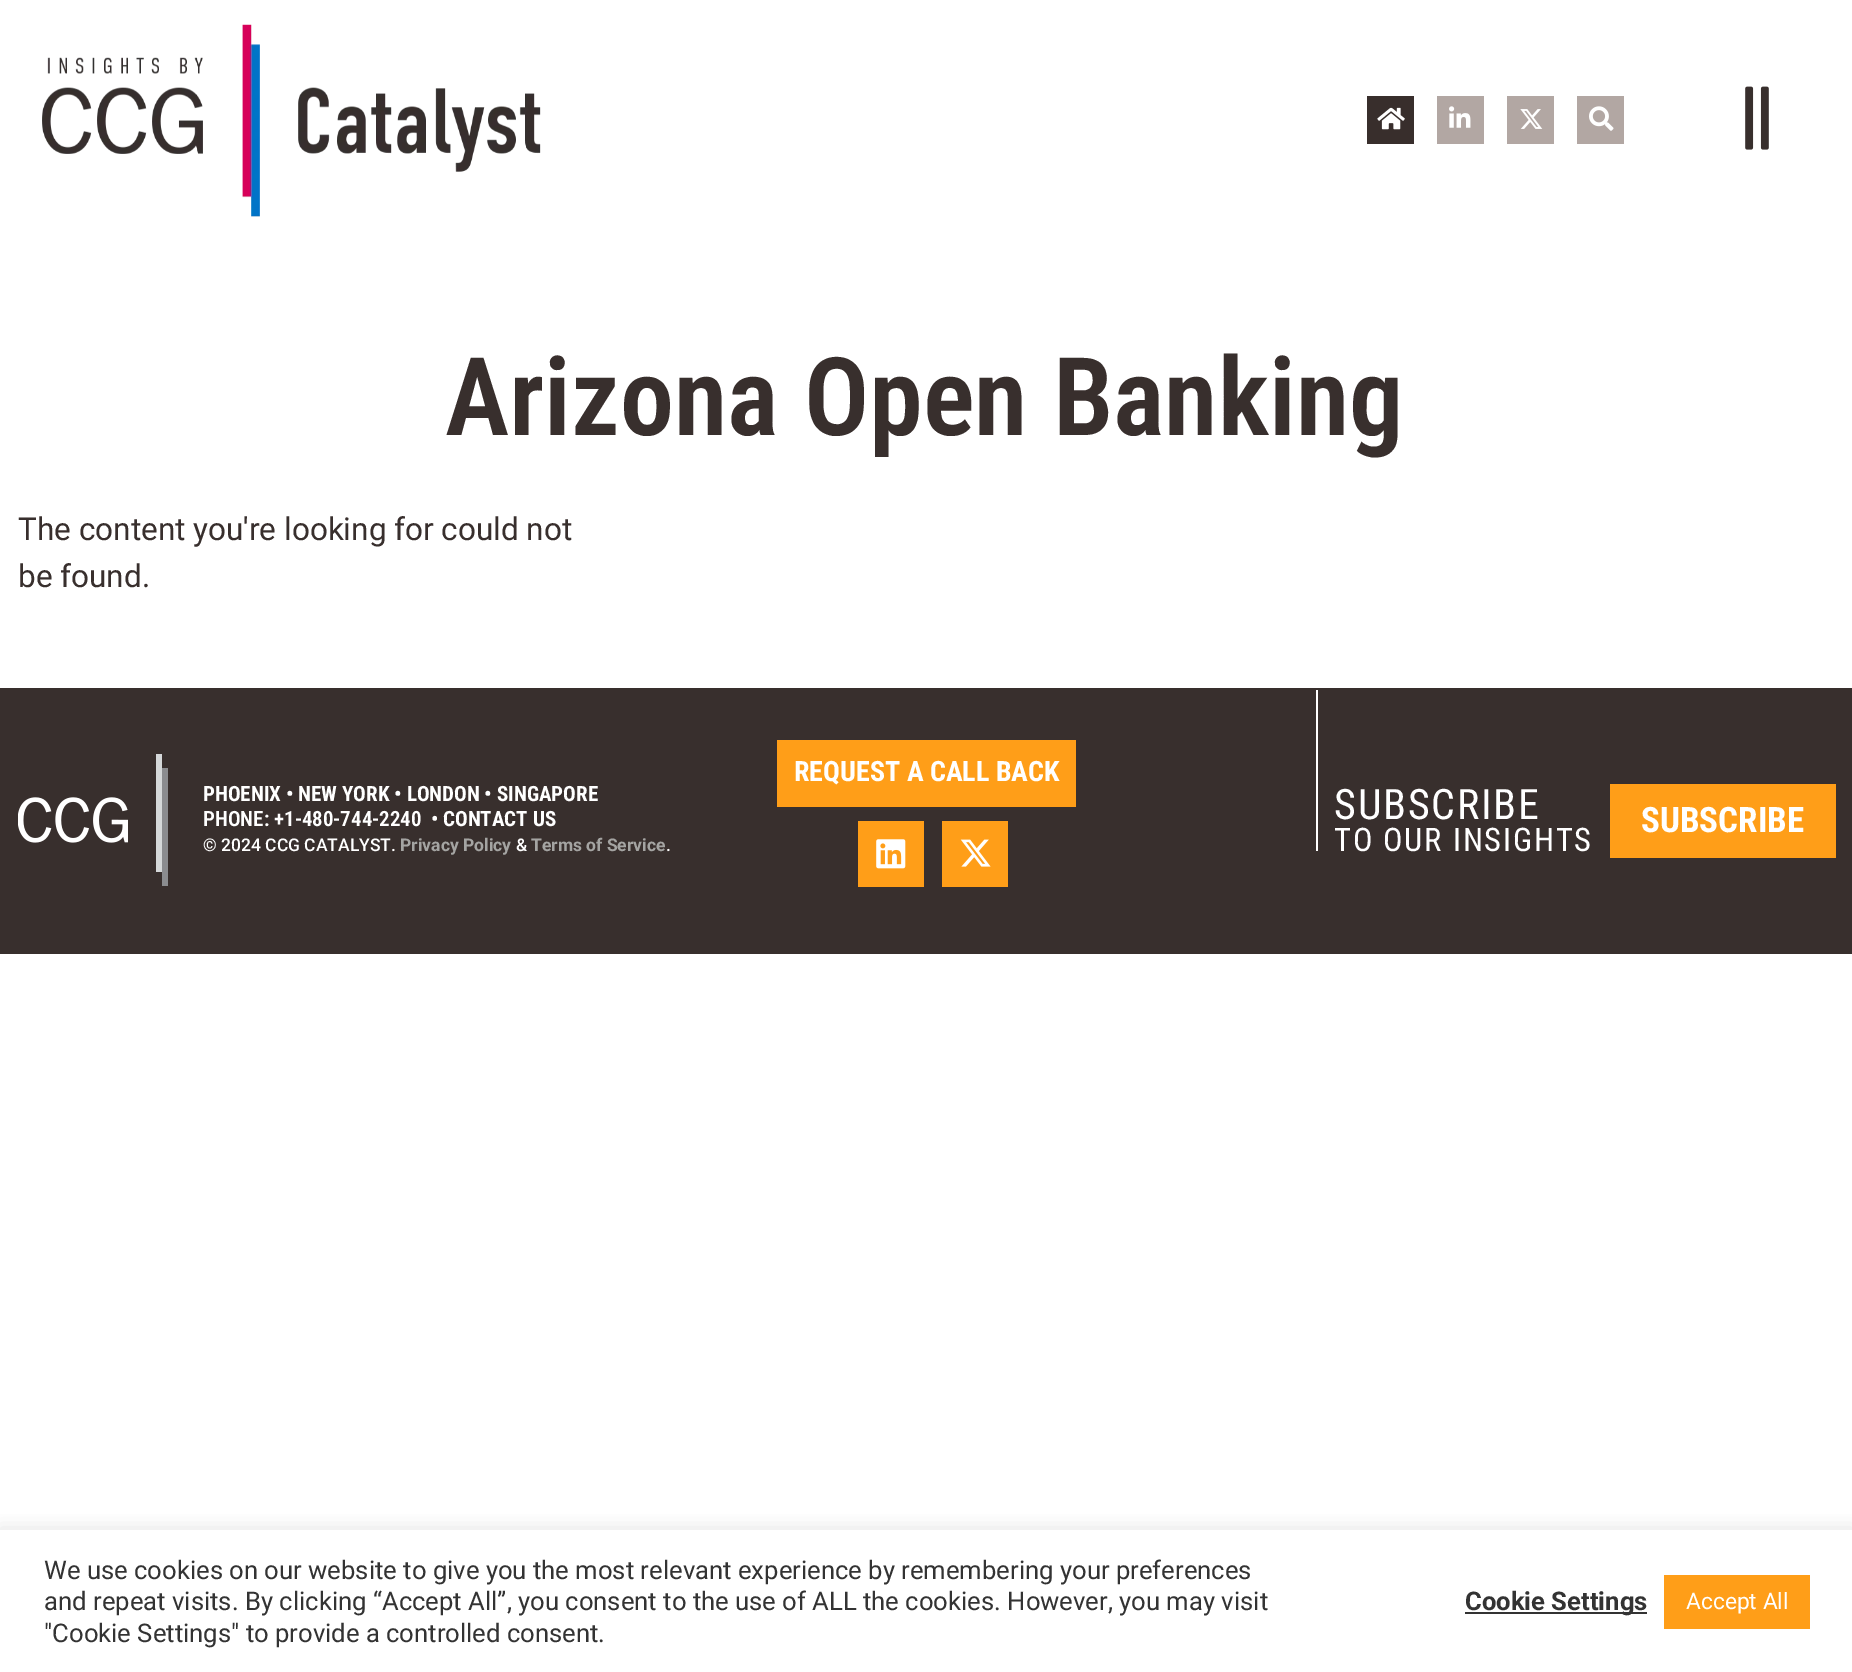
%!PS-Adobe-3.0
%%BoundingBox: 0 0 1852 1672
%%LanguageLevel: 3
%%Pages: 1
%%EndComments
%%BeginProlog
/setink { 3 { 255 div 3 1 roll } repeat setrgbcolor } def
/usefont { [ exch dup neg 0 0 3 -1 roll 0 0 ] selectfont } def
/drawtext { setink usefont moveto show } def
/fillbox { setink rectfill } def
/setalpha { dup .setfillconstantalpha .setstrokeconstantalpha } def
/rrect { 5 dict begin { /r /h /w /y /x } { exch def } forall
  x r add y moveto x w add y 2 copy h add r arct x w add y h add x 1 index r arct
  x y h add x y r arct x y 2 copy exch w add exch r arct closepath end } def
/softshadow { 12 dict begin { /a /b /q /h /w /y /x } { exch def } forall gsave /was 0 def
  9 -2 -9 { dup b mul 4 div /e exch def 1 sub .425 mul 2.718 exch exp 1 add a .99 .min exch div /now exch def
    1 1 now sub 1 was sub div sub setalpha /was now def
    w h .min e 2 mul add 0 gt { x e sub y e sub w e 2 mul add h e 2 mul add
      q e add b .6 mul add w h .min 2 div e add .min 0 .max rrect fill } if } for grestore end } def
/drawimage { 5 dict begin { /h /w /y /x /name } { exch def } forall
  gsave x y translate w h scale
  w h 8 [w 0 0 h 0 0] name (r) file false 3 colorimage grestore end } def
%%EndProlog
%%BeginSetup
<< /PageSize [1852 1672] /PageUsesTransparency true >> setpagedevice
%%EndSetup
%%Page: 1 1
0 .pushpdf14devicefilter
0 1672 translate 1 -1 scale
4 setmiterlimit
0 0 1852 1672 255 255 255 fillbox
(assets/img1.rgb) 42 24 499 193 drawimage
1367 96 47 48 56 46 44 fillbox
(assets/img2.rgb) 1377 107 28 23 drawimage
1437 96 47 48 178 167 163 fillbox
(assets/img3.rgb) 1449 106 22 22 drawimage
1507 96 47 48 178 167 163 fillbox
(assets/img4.rgb) 1520 109 23 20 drawimage
1577 96 47 48 178 167 163 fillbox
(assets/img5.rgb) 1589 106 25 25 drawimage
(assets/img6.rgb) 1745 86 24 64 drawimage
(Arizona Open Banking) 445 435 /RobotoCondensed-SemiBold 108.5 56 47 45 drawtext
(The content you're looking for could not) 18 540 /Roboto-Regular 31.5 56 47 45 drawtext
(be found.) 18 587 /Roboto-Regular 31.5 56 47 45 drawtext
0 688 1852 266 56 47 45 fillbox
(assets/img7.rgb) 18 754 150 132 drawimage
777 740 299 67 255 158 24 fillbox
(REQUEST A CALL BACK) 794 781 /RobotoCondensed-Bold 28 255 255 255 drawtext
858 821 66 66 255 158 24 fillbox
(assets/img8.rgb) 876 839 30 30 drawimage
942 821 66 66 255 158 24 fillbox
(assets/img9.rgb) 960 839 31 28 drawimage
(PHOENIX • NEW YORK • LONDON • SINGAPORE) 203 801 /RobotoCondensed-Bold 21 255 255 255 drawtext
(PHONE: +1-480-744-2240) 203 826 /RobotoCondensed-SemiBold 21 255 255 255 drawtext
(•) 431 826 /RobotoCondensed-SemiBold 21 255 255 255 drawtext
(CONTACT US) 443 826 /RobotoCondensed-Bold 21 255 255 255 drawtext
(© 2024 CCG CATALYST.) 203 851 /Roboto-Medium 17.5 255 255 255 drawtext
(Privacy Policy) 400 851 /Roboto-Bold 17.5 164 164 162 drawtext
(&) 516 851 /Roboto-Medium 17.5 255 255 255 drawtext
(Terms of Service) 531 851 /Roboto-Bold 17.5 164 164 162 drawtext
(.) 666 851 /Roboto-Medium 17.5 255 255 255 drawtext
1316 690 2 161 255 255 255 fillbox
/RobotoCondensed-Regular 42 usefont
1334 819 moveto 1.75 0 (SUBSCRIBE) ashow
/RobotoCondensed-Regular 32.5 usefont
1334 851 moveto 1.75 0 (TO OUR INSIGHTS) ashow
1610 784 226 74 255 158 24 fillbox
(SUBSCRIBE) 1641 832 /RobotoCondensed-Bold 35 255 255 255 drawtext
gsave
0 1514 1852 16 rectclip
172 171 171 setink
0 1528 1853 143 0 9 0.3 softshadow
grestore
(We use cookies on our website to give you the most relevant experience by remembering your preferences) 44 1579 /Roboto-Regular 25.65 51 51 51 drawtext
(and repeat visits. By clicking “Accept All”, you consent to the use of ALL the cookies. However, you may visit) 44 1610 /Roboto-Regular 25.65 51 51 51 drawtext
("Cookie Settings" to provide a controlled consent.) 44 1642 /Roboto-Regular 25.65 51 51 51 drawtext
1465 1612 182 2 51 51 51 fillbox
(Cookie Settings) 1465 1610 /Roboto-Bold 25.65 51 51 51 drawtext
1664 1575 146 54 255 158 24 fillbox
(Accept All) 1686 1609 /Roboto-Regular 22.75 255 255 255 drawtext
.poppdf14devicefilter showpage
%%EOF
